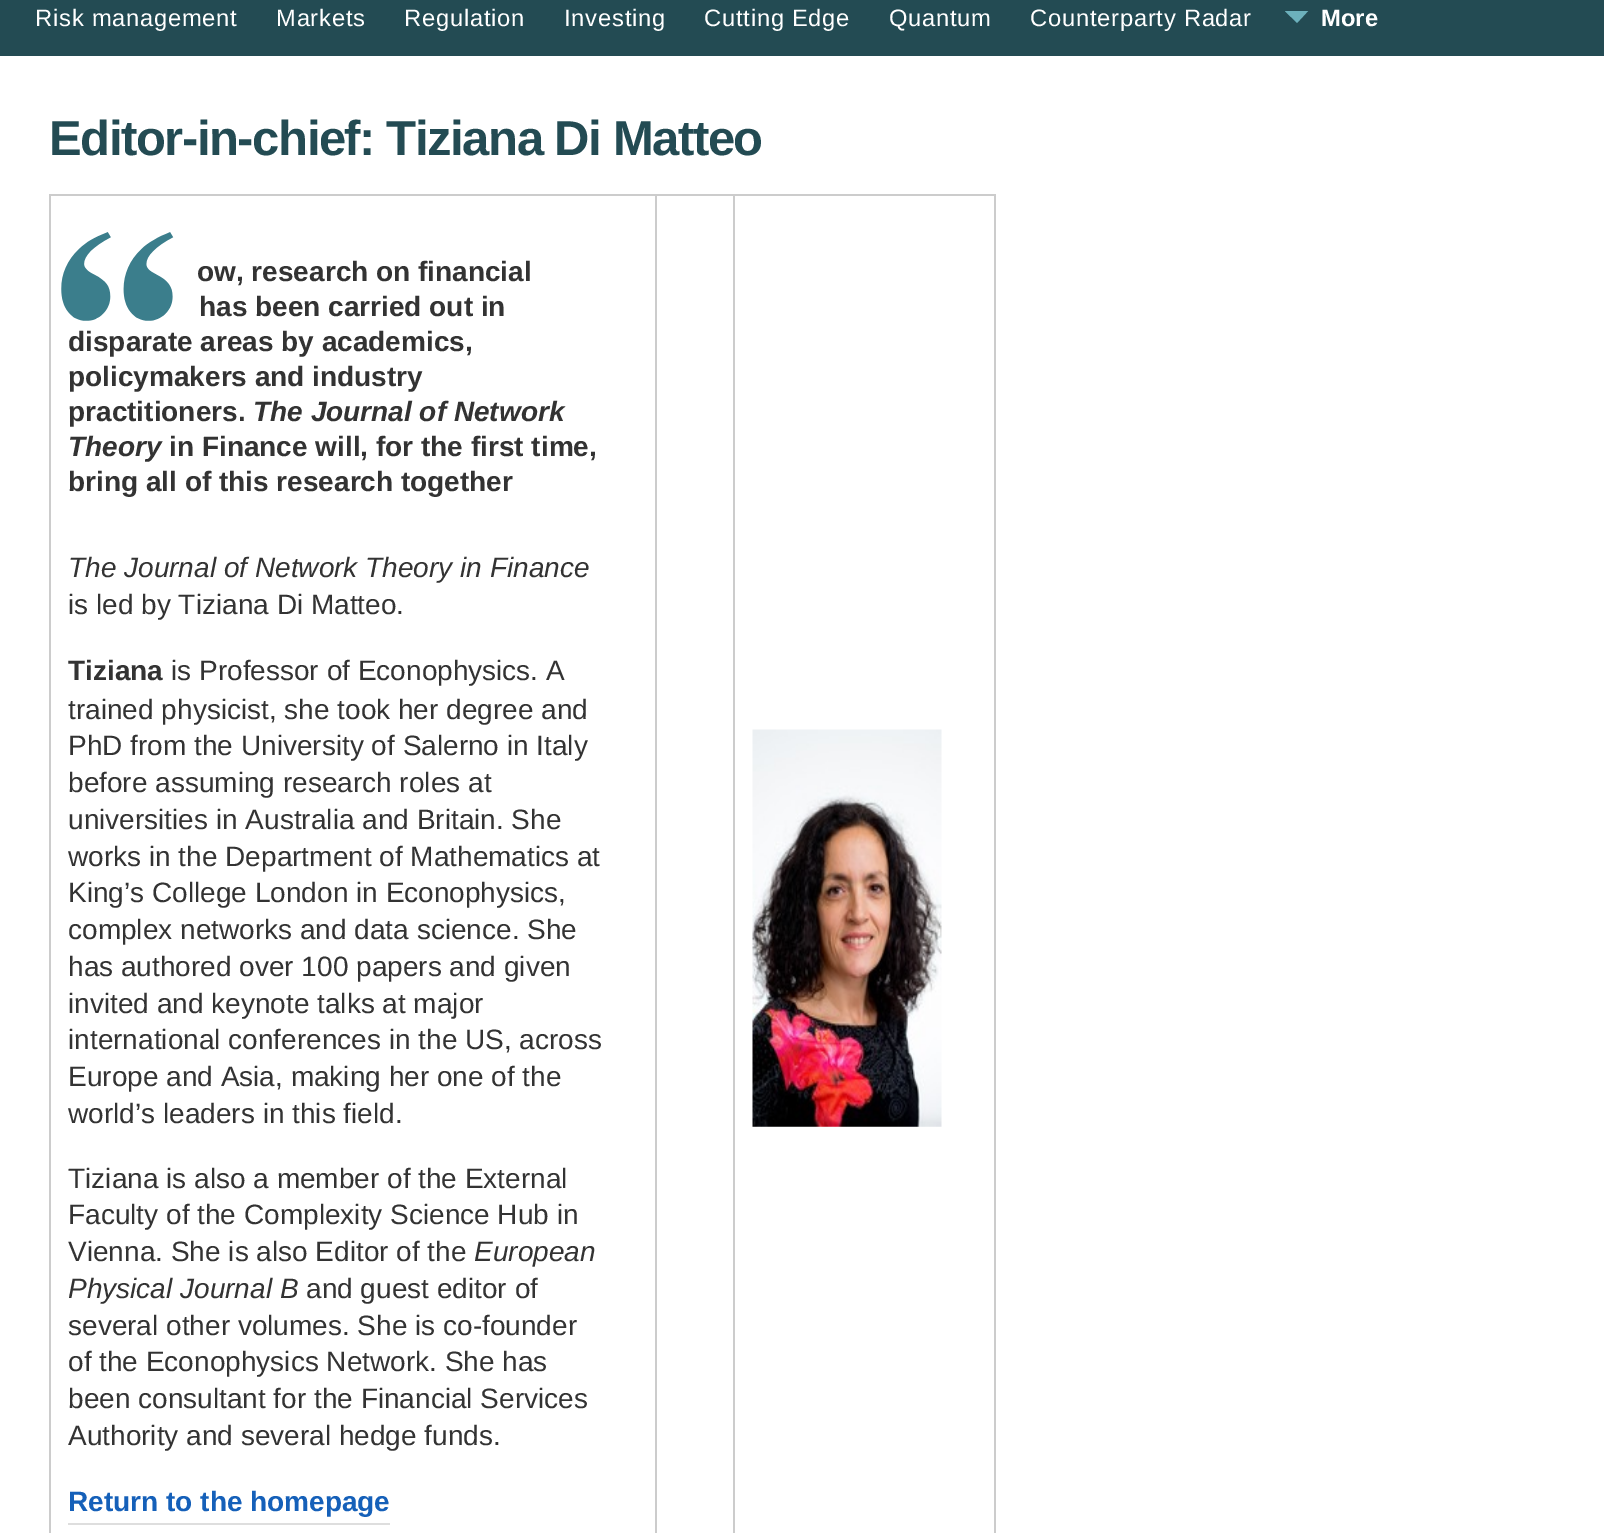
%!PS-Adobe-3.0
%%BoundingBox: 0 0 1604 1533
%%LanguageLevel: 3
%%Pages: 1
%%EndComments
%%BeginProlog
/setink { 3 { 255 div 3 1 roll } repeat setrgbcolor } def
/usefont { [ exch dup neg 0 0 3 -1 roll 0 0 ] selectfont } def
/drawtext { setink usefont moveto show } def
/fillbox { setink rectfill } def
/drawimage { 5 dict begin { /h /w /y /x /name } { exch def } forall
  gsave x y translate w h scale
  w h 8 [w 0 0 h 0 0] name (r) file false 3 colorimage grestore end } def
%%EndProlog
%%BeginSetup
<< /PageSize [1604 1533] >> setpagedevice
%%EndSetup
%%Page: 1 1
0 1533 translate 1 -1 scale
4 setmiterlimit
0 0 1604 1533 255 255 255 fillbox
0 0 1604 56 35 75 83 fillbox
/Arimo-Regular 23.75 usefont
255 255 255 setink
35 26 moveto 0.75 0 (Risk management) ashow
276 26 moveto 0.75 0 (Markets) ashow
404 26 moveto 0.75 0 (Regulation) ashow
564 26 moveto 0.75 0 (Investing) ashow
704 26 moveto 0.75 0 (Cutting Edge) ashow
889 26 moveto 0.75 0 (Quantum) ashow
1030 26 moveto 0.75 0 (Counterparty Radar) ashow
gsave
1285 11 24 14 rectclip
108 177 188 setink
1309 84 moveto 1284 84 lineto 1297 72 lineto closepath 1284 10 moveto 1309 10 lineto 1297 23 lineto closepath fill
grestore
(More) 1321 26 /Arimo-Bold 23.75 255 255 255 drawtext
/LiberationSans-Bold 49 usefont
35 75 83 setink
49 155 moveto -1.45 0 (Editor-in-chief: Tiziana Di Matteo) ashow
49 194 947 2 204 204 204 fillbox
994 194 2 1339 204 204 204 fillbox
49 194 2 1339 204 204 204 fillbox
(assets/img1.rgb) 61 232 113 89 drawimage
(ow, research on financial) 197 281 /Arimo-Bold 28 51 51 51 drawtext
(has been carried out in) 199 316 /Arimo-Bold 28 51 51 51 drawtext
(disparate areas by academics,) 68 351 /Arimo-Bold 28 51 51 51 drawtext
(policymakers and industry) 68 386 /Arimo-Bold 28 51 51 51 drawtext
(practitioners.) 68 421 /Arimo-Bold 28 51 51 51 drawtext
(The Journal of Network) 253 421 /Arimo-BoldItalic 28 51 51 51 drawtext
(Theory) 68 456 /Arimo-BoldItalic 28 51 51 51 drawtext
(in Finance will, for the first time,) 169 456 /Arimo-Bold 28 51 51 51 drawtext
(bring all of this research together) 68 491 /Arimo-Bold 28 51 51 51 drawtext
(The Journal of Network Theory in Finance) 68 577 /Arimo-Italic 28 51 51 51 drawtext
(is led by Tiziana Di Matteo.) 68 614 /Arimo-Regular 28 51 51 51 drawtext
(Tiziana) 68 680 /Arimo-Bold 28 51 51 51 drawtext
(is Professor of Econophysics. A) 171 680 /Arimo-Regular 28 51 51 51 drawtext
(trained physicist, she took her degree and) 68 719 /Arimo-Regular 28 51 51 51 drawtext
(PhD from the University of Salerno in Italy) 68 755 /Arimo-Regular 28 51 51 51 drawtext
(before assuming research roles at) 68 792 /Arimo-Regular 28 51 51 51 drawtext
(universities in Australia and Britain. She) 68 829 /Arimo-Regular 28 51 51 51 drawtext
(works in the Department of Mathematics at) 68 866 /Arimo-Regular 28 51 51 51 drawtext
(King’s College London in Econophysics,) 68 902 /Arimo-Regular 28 51 51 51 drawtext
(complex networks and data science. She) 68 939 /Arimo-Regular 28 51 51 51 drawtext
(has authored over 100 papers and given) 68 976 /Arimo-Regular 28 51 51 51 drawtext
(invited and keynote talks at major) 68 1013 /Arimo-Regular 28 51 51 51 drawtext
(international conferences in the US, across) 68 1049 /Arimo-Regular 28 51 51 51 drawtext
(Europe and Asia, making her one of the) 68 1086 /Arimo-Regular 28 51 51 51 drawtext
(world’s leaders in this field.) 68 1123 /Arimo-Regular 28 51 51 51 drawtext
(Tiziana is also a member of the External) 68 1188 /Arimo-Regular 28 51 51 51 drawtext
(Faculty of the Complexity Science Hub in) 68 1224 /Arimo-Regular 28 51 51 51 drawtext
(Vienna. She is also Editor of the) 68 1261 /Arimo-Regular 28 51 51 51 drawtext
(European) 474 1261 /Arimo-Italic 28 51 51 51 drawtext
(Physical Journal B) 68 1298 /Arimo-Italic 28 51 51 51 drawtext
(and guest editor of) 306 1298 /Arimo-Regular 28 51 51 51 drawtext
(several other volumes. She is co-founder) 68 1335 /Arimo-Regular 28 51 51 51 drawtext
(of the Econophysics Network. She has) 68 1371 /Arimo-Regular 28 51 51 51 drawtext
(been consultant for the Financial Services) 68 1408 /Arimo-Regular 28 51 51 51 drawtext
(Authority and several hedge funds.) 68 1445 /Arimo-Regular 28 51 51 51 drawtext
68 1523 322 2 222 222 222 fillbox
(Return to the homepage) 68 1511 /Arimo-Bold 28 21 96 185 drawtext
655 194 2 1339 204 204 204 fillbox
733 194 2 1339 204 204 204 fillbox
(assets/img2.rgb) 752 729 190 398 drawimage
showpage
%%EOF
